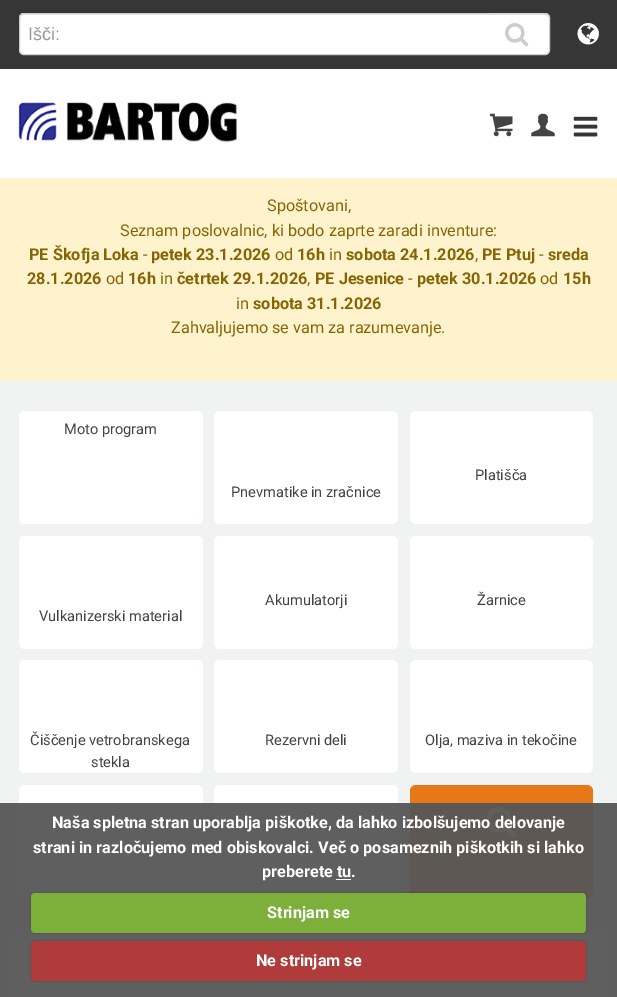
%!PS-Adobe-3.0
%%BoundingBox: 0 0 617 997
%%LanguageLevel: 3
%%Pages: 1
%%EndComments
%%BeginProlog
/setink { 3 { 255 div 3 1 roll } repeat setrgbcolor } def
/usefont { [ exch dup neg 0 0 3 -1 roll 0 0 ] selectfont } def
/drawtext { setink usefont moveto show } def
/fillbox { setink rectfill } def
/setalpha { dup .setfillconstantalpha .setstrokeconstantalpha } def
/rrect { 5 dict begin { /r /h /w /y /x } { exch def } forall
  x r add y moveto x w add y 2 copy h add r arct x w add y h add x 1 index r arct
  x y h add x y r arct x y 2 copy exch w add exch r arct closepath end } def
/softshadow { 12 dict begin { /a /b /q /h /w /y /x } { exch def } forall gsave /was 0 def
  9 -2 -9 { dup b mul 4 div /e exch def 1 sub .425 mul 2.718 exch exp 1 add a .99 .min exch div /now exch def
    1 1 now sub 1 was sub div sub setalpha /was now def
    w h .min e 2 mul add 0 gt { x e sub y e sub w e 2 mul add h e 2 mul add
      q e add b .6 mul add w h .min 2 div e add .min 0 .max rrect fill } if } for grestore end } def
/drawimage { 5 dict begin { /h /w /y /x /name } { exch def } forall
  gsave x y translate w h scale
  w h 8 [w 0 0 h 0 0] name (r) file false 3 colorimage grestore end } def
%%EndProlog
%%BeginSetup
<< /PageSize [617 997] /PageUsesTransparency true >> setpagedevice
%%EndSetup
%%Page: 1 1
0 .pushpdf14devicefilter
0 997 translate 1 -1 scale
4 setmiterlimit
0 0 617 997 241 242 242 fillbox
0 0 617 69 54 54 54 fillbox
255 255 255 setink
19 13 531 42 5 rrect fill
236 236 236 setink
24 15 moveto 545 15 lineto 547 15 549 17 549 19 curveto 549 18 lineto 549 16 547 14 545 14 curveto 24 14 lineto 22 14 20 16 20 18 curveto 20 19 lineto 20 17 22 15 24 15 curveto closepath fill
204 204 204 setink
19.5 13.5 530 41 4.5 rrect stroke
(Išči:) 28 40 /LiberationSans-Regular 18 153 153 153 drawtext
489 13 55 1 214 214 214 fillbox
(assets/img1.rgb) 505 23 24 24 drawimage
(assets/img2.rgb) 577 23 22 22 drawimage
0 69 617 109 255 255 255 fillbox
(assets/img3.rgb) 18 102 219 41 drawimage
(assets/img4.rgb) 490 113 23 24 drawimage
(assets/img5.rgb) 531 113 24 24 drawimage
(assets/img6.rgb) 573 116 25 21 drawimage
0 178 617 203 255 243 205 fillbox
(Spoštovani,) 267 211 /Roboto-Regular 16.25 133 100 4 drawtext
(Seznam poslovalnic, ki bodo zaprte zaradi inventure:) 120 236 /Roboto-Regular 16.25 133 100 4 drawtext
(PE Škofja Loka) 29 260 /Roboto-Bold 16.25 133 100 4 drawtext
(-) 143 260 /Roboto-Regular 16.25 133 100 4 drawtext
(petek 23.1.2026) 151 260 /Roboto-Bold 16.25 133 100 4 drawtext
(od) 275 260 /Roboto-Regular 16.25 133 100 4 drawtext
(16h) 297 260 /Roboto-Bold 16.25 133 100 4 drawtext
(in) 329 260 /Roboto-Regular 16.25 133 100 4 drawtext
(sobota 24.1.2026) 346 260 /Roboto-Bold 16.25 133 100 4 drawtext
(PE Ptuj) 482 260 /Roboto-Bold 16.25 133 100 4 drawtext
(-) 539 260 /Roboto-Regular 16.25 133 100 4 drawtext
(sreda) 548 260 /Roboto-Bold 16.25 133 100 4 drawtext
(,) 475 260 /Roboto-Regular 16.25 133 100 4 drawtext
(28.1.2026) 27 284 /Roboto-Bold 16.25 133 100 4 drawtext
(od) 106 284 /Roboto-Regular 16.25 133 100 4 drawtext
(16h) 128 284 /Roboto-Bold 16.25 133 100 4 drawtext
(in) 160 284 /Roboto-Regular 16.25 133 100 4 drawtext
(četrtek 29.1.2026) 177 284 /Roboto-Bold 16.25 133 100 4 drawtext
(PE Jesenice) 315 284 /Roboto-Bold 16.25 133 100 4 drawtext
(-) 408 284 /Roboto-Regular 16.25 133 100 4 drawtext
(petek 30.1.2026) 417 284 /Roboto-Bold 16.25 133 100 4 drawtext
(od) 540 284 /Roboto-Regular 16.25 133 100 4 drawtext
(15h) 563 284 /Roboto-Bold 16.25 133 100 4 drawtext
(,) 307 284 /Roboto-Regular 16.25 133 100 4 drawtext
(in) 236 309 /Roboto-Regular 16.25 133 100 4 drawtext
(sobota 31.1.2026) 253 309 /Roboto-Bold 16.25 133 100 4 drawtext
(Zahvaljujemo se vam za razumevanje.) 171 333 /Roboto-Regular 16.25 133 100 4 drawtext
255 255 255 setink
19 411 184 113 6 rrect fill
(Moto program) 64 434 /Roboto-Regular 14.6 67 67 67 drawtext
255 255 255 setink
410 411 183 113 6 rrect fill
(Platišča) 475 480 /Roboto-Regular 14.6 67 67 67 drawtext
255 255 255 setink
214 411 184 113 6 rrect fill
(Pnevmatike in zračnice) 231 497 /Roboto-Regular 14.6 67 67 67 drawtext
255 255 255 setink
214 536 184 113 6 rrect fill
(Akumulatorji) 265 605 /Roboto-Regular 14.6 67 67 67 drawtext
255 255 255 setink
410 536 183 113 6 rrect fill
(Žarnice) 477 605 /Roboto-Regular 14.6 67 67 67 drawtext
255 255 255 setink
19 536 184 113 6 rrect fill
(Vulkanizerski material) 39 621 /Roboto-Regular 14.6 67 67 67 drawtext
255 255 255 setink
19 660 184 113 6 rrect fill
(Čiščenje vetrobranskega) 30 745 /Roboto-Regular 14.6 67 67 67 drawtext
(stekla) 91 767 /Roboto-Regular 14.6 67 67 67 drawtext
255 255 255 setink
214 660 184 113 6 rrect fill
(Rezervni deli) 265 745 /Roboto-Regular 14.6 67 67 67 drawtext
255 255 255 setink
410 660 183 113 6 rrect fill
(Olja, maziva in tekočine) 425 745 /Roboto-Regular 14.6 67 67 67 drawtext
255 255 255 setink
19 785 184 113 6 rrect fill
214 785 184 113 6 rrect fill
230 120 23 setink
410 785 183 113 6 rrect fill
(assets/img7.rgb) 486 807 31 31 drawimage
255 255 255 setink
13 930 592 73 6 rrect fill
0.95 setalpha
0 803 617 194 86 86 86 fillbox
1 setalpha
(Naša spletna stran uporablja piškotke, da lahko izbolšujemo delovanje) 52 828 /Roboto-Bold 16.25 255 255 255 drawtext
(strani in razločujemo med obiskovalci. Več o posameznih piškotkih si lahko) 33 853 /Roboto-Bold 16.25 255 255 255 drawtext
(preberete tu.) 262 877 /Roboto-Bold 16.25 255 255 255 drawtext
336 879 15 1 255 255 255 fillbox
0 0 0 setink
31 893 555 40 4 1 0.25 softshadow
125 175 59 setink
31 893 555 40 4 rrect fill
(Strinjam se) 267 918 /Roboto-Bold 16.25 255 255 255 drawtext
0 0 0 setink
31 941 555 40 4 1 0.25 softshadow
175 59 59 setink
31 941 555 40 4 rrect fill
(Ne strinjam se) 256 966 /Roboto-Bold 16.25 255 255 255 drawtext
.poppdf14devicefilter showpage
%%EOF
